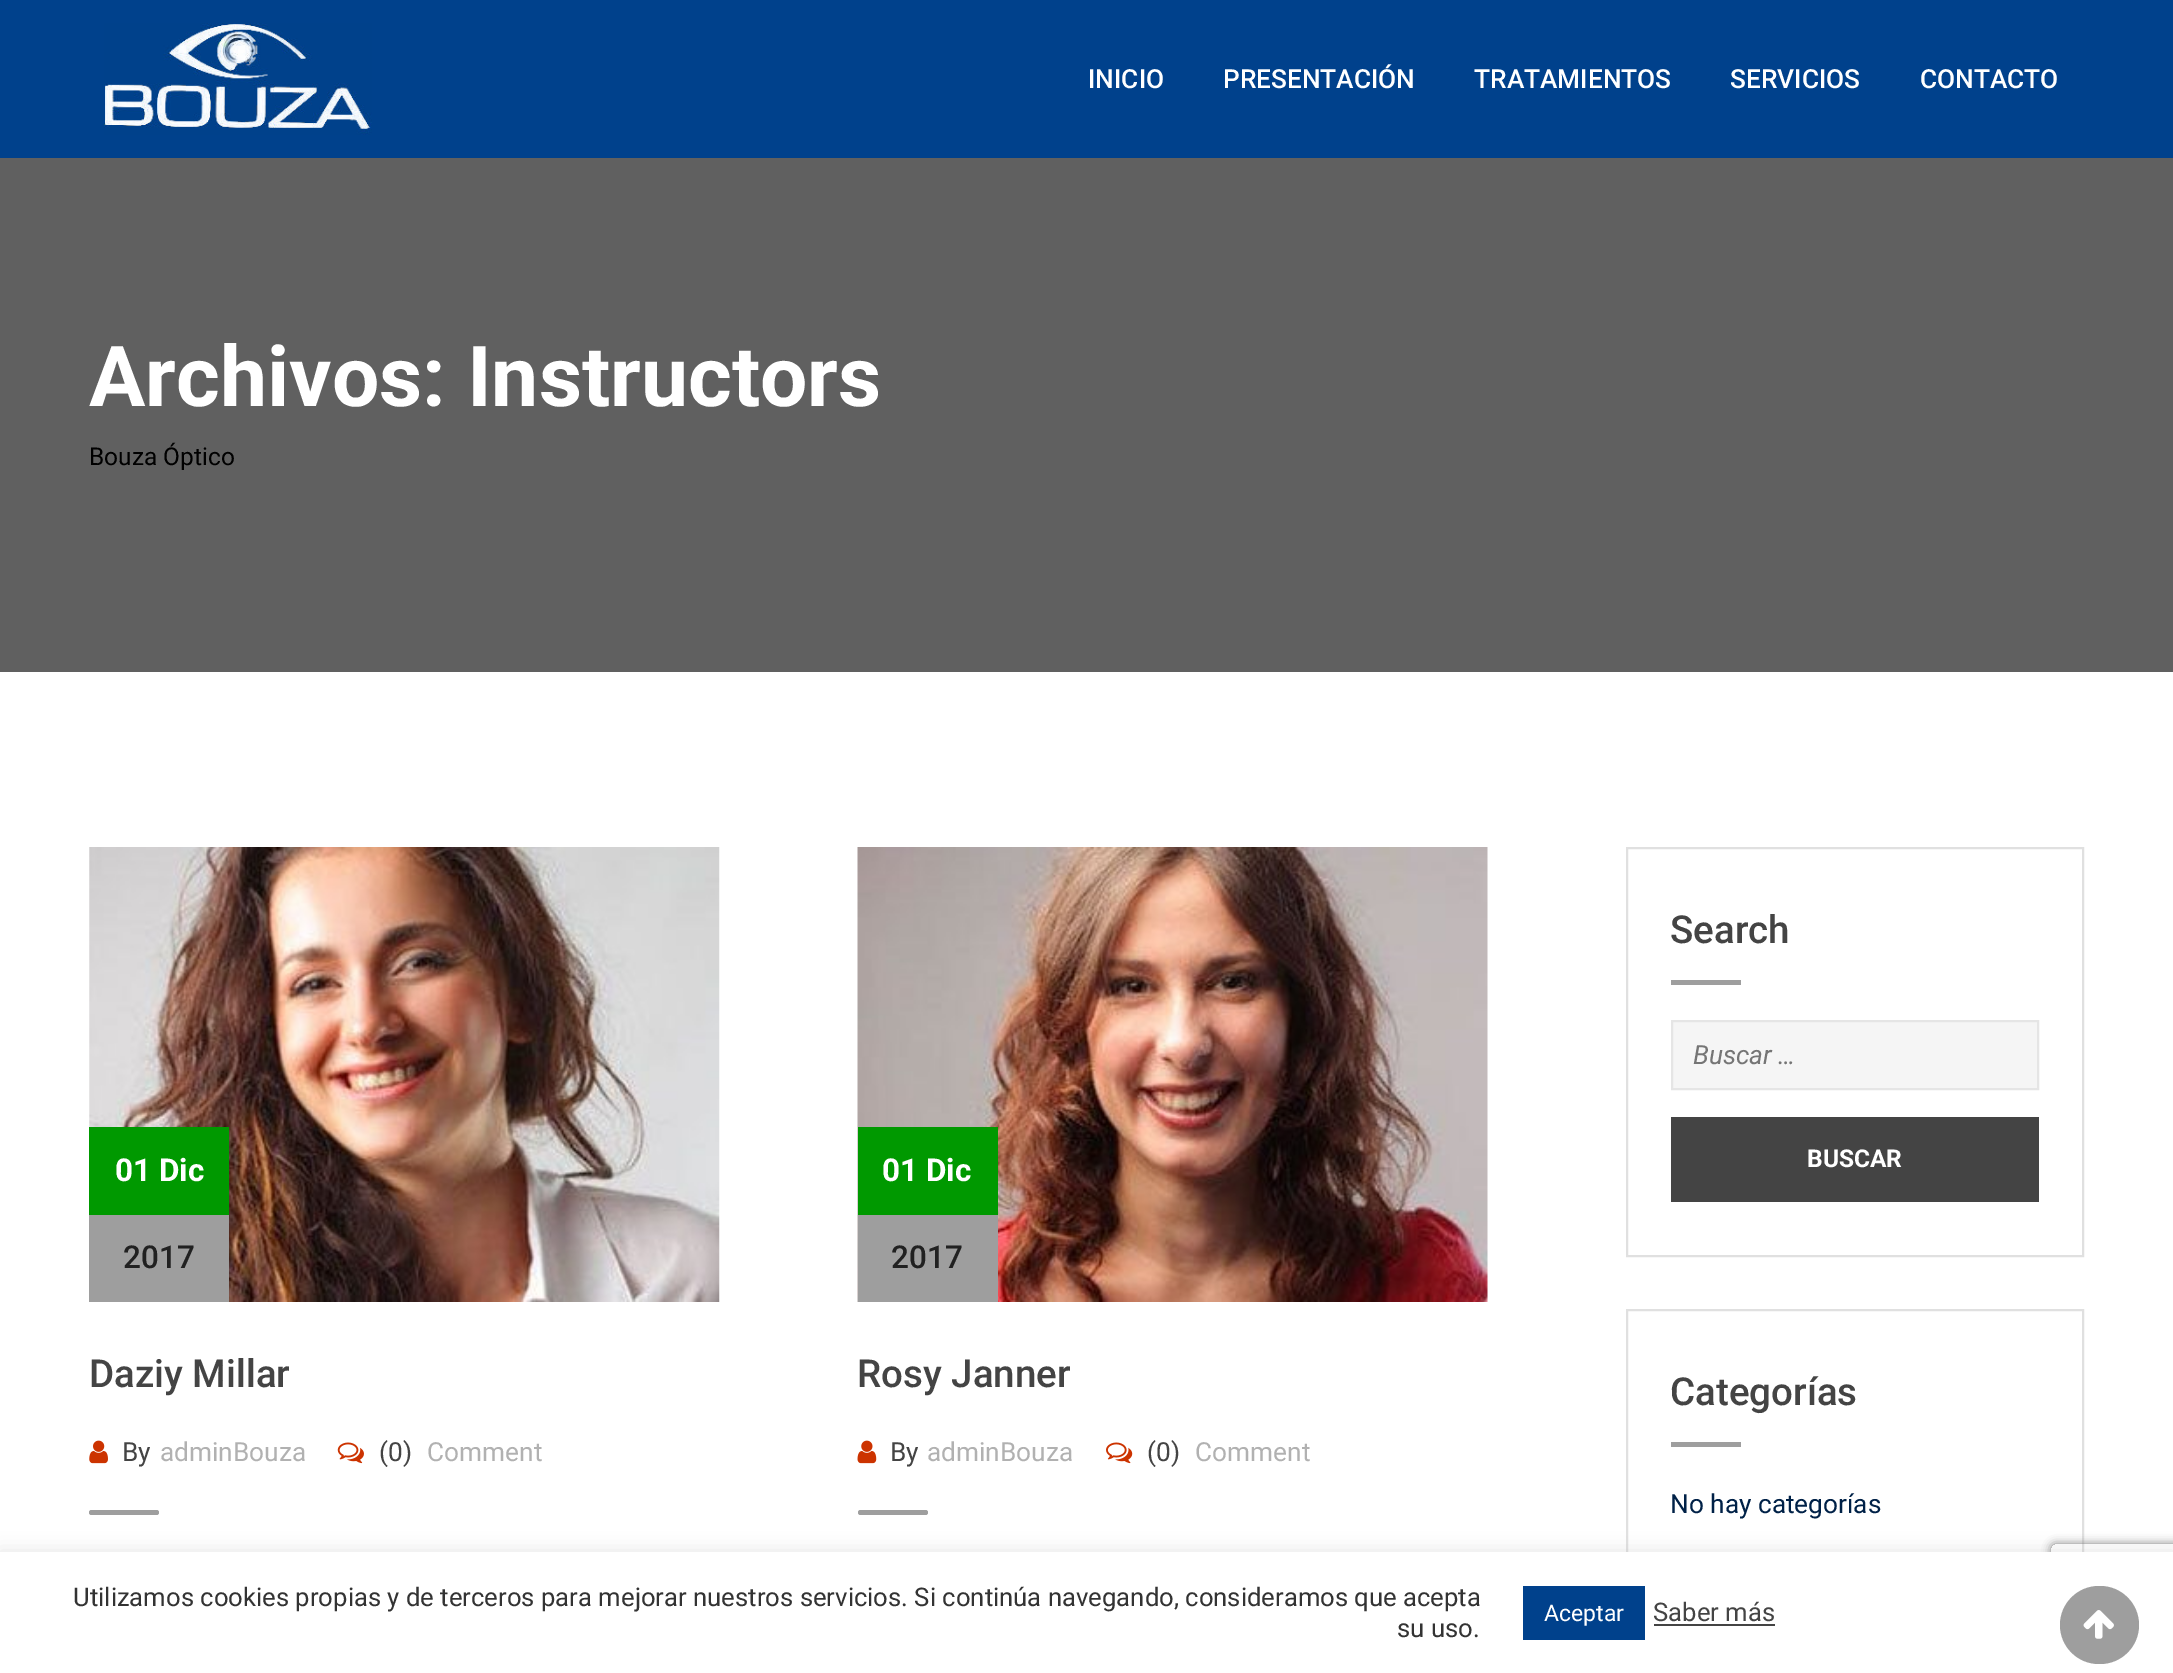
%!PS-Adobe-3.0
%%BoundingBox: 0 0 2173 1673
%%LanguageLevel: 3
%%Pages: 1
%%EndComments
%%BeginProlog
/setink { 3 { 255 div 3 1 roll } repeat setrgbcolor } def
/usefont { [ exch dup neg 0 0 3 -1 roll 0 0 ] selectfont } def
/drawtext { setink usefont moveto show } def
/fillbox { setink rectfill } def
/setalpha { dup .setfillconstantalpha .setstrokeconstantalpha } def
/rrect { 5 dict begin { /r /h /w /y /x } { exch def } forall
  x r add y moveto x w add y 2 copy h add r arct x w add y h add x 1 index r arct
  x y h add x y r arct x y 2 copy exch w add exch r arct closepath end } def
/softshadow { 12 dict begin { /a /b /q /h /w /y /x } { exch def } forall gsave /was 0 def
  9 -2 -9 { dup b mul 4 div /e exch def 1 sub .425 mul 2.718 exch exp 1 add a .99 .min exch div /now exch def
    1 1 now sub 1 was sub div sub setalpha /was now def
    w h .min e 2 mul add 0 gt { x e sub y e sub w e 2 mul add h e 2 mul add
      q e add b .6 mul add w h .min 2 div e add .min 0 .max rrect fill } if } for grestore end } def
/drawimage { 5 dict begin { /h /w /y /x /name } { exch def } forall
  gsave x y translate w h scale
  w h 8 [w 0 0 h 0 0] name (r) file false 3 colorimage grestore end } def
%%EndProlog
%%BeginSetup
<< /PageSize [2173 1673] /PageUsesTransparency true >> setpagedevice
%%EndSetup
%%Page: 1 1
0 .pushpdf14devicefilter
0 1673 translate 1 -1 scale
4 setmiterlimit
0 0 2173 1673 255 255 255 fillbox
0 0 2173 158 0 65 140 fillbox
(assets/img1.rgb) 104 23 268 112 drawimage
(INICIO) 1088 88 /Roboto-Medium 26.25 255 255 255 drawtext
(PRESENTACIÓN) 1223 88 /Roboto-Medium 26.25 255 255 255 drawtext
(TRATAMIENTOS) 1474 88 /Roboto-Medium 26.25 255 255 255 drawtext
(SERVICIOS) 1730 88 /Roboto-Medium 26.25 255 255 255 drawtext
(CONTACTO) 1920 88 /Roboto-Medium 26.25 255 255 255 drawtext
0 158 2173 514 96 96 96 fillbox
(Archivos: Instructors) 89 406 /Roboto-Bold 84 255 255 255 drawtext
(Bouza Óptico) 89 465 /Roboto-Regular 24.5 0 0 0 drawtext
(assets/img2.rgb) 89 847 631 455 drawimage
89 1127 140 88 0 153 0 fillbox
(01 Dic) 115 1181 /Roboto-Bold 31.5 255 255 255 drawtext
89 1215 140 87 158 158 158 fillbox
(2017) 123 1268 /Roboto-Medium 31.5 33 33 33 drawtext
(Daziy Millar) 89 1387 /Roboto-Medium 38.5 68 68 68 drawtext
(assets/img3.rgb) 89 1440 19 24 drawimage
(By) 122 1461 /Roboto-Regular 26.25 68 68 68 drawtext
(adminBouza) 160 1461 /Roboto-Regular 26.25 177 177 177 drawtext
(assets/img4.rgb) 337 1442 27 22 drawimage
(\(0\)) 379 1461 /Roboto-Regular 26.25 68 68 68 drawtext
(Comment) 427 1461 /Roboto-Regular 26.25 177 177 177 drawtext
158 158 158 setink
89 1510 70 5 2.5 rrect fill
(assets/img5.rgb) 857 847 631 455 drawimage
858 1127 140 88 0 153 0 fillbox
(01 Dic) 882 1181 /Roboto-Bold 31.5 255 255 255 drawtext
858 1215 140 87 158 158 158 fillbox
(2017) 891 1268 /Roboto-Medium 31.5 33 33 33 drawtext
(Rosy Janner) 857 1387 /Roboto-Medium 38.5 68 68 68 drawtext
(assets/img6.rgb) 857 1440 20 24 drawimage
(By) 890 1461 /Roboto-Regular 26.25 68 68 68 drawtext
(adminBouza) 927 1461 /Roboto-Regular 26.25 177 177 177 drawtext
(assets/img7.rgb) 1106 1442 27 22 drawimage
(\(0\)) 1147 1461 /Roboto-Regular 26.25 68 68 68 drawtext
(Comment) 1195 1461 /Roboto-Regular 26.25 177 177 177 drawtext
158 158 158 setink
858 1510 70 5 2.5 rrect fill
224 224 224 setink
2 setlinewidth
1627 848 456 408 rectstroke
(Search) 1670 943 /Roboto-Medium 38.5 68 68 68 drawtext
1671 980 70 5 158 158 158 fillbox
245 245 245 setink
1672 1021 moveto 2038 1021 lineto 2038 1089 lineto 1672 1089 lineto closepath gsave fill grestore
229 229 229 setink
stroke
(Buscar …) 1693 1064 /Roboto-Italic 26.25 117 117 117 drawtext
1671 1117 368 85 68 68 68 fillbox
(BUSCAR) 1807 1167 /Roboto-Bold 24.5 255 255 255 drawtext
224 224 224 setink
1627 1310 456 271 rectstroke
(Categorías) 1670 1405 /Roboto-Medium 38.5 68 68 68 drawtext
1671 1442 70 5 158 158 158 fillbox
(No hay categorías) 1670 1513 /Roboto-Regular 26.25 0 33 71 drawtext
172 171 171 setink
0 1551 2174 120 0 9 0.3 softshadow
gsave
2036 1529 moveto 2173 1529 lineto 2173 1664 lineto 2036 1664 lineto closepath 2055 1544 moveto 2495 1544 lineto 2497 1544 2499 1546 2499 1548 curveto 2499 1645 lineto 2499 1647 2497 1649 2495 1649 curveto 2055 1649 lineto 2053 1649 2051 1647 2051 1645 curveto 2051 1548 lineto 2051 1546 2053 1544 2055 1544 curveto closepath eoclip newpath
128 128 128 setink
2051 1544 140 105 4 4.5 1 softshadow
grestore
0 1552 2173 121 255 255 255 fillbox
(Utilizamos cookies propias y de terceros para mejorar nuestros servicios. Si continúa navegando, consideramos que acepta) 73 1606 /Roboto-Regular 25.67 51 51 51 drawtext
(su uso.) 1397 1637 /Roboto-Regular 25.67 51 51 51 drawtext
1523 1586 122 54 0 65 140 fillbox
(Aceptar) 1544 1621 /Roboto-Regular 23 255 255 255 drawtext
(Saber más) 1653 1621 /Roboto-Regular 25.67 68 68 68 drawtext
1654 1624 121 2 68 68 68 fillbox
158 158 158 setink
2060 1586 79 78 39 rrect fill
(assets/img8.rgb) 2083 1610 31 29 drawimage
.poppdf14devicefilter showpage
%%EOF
